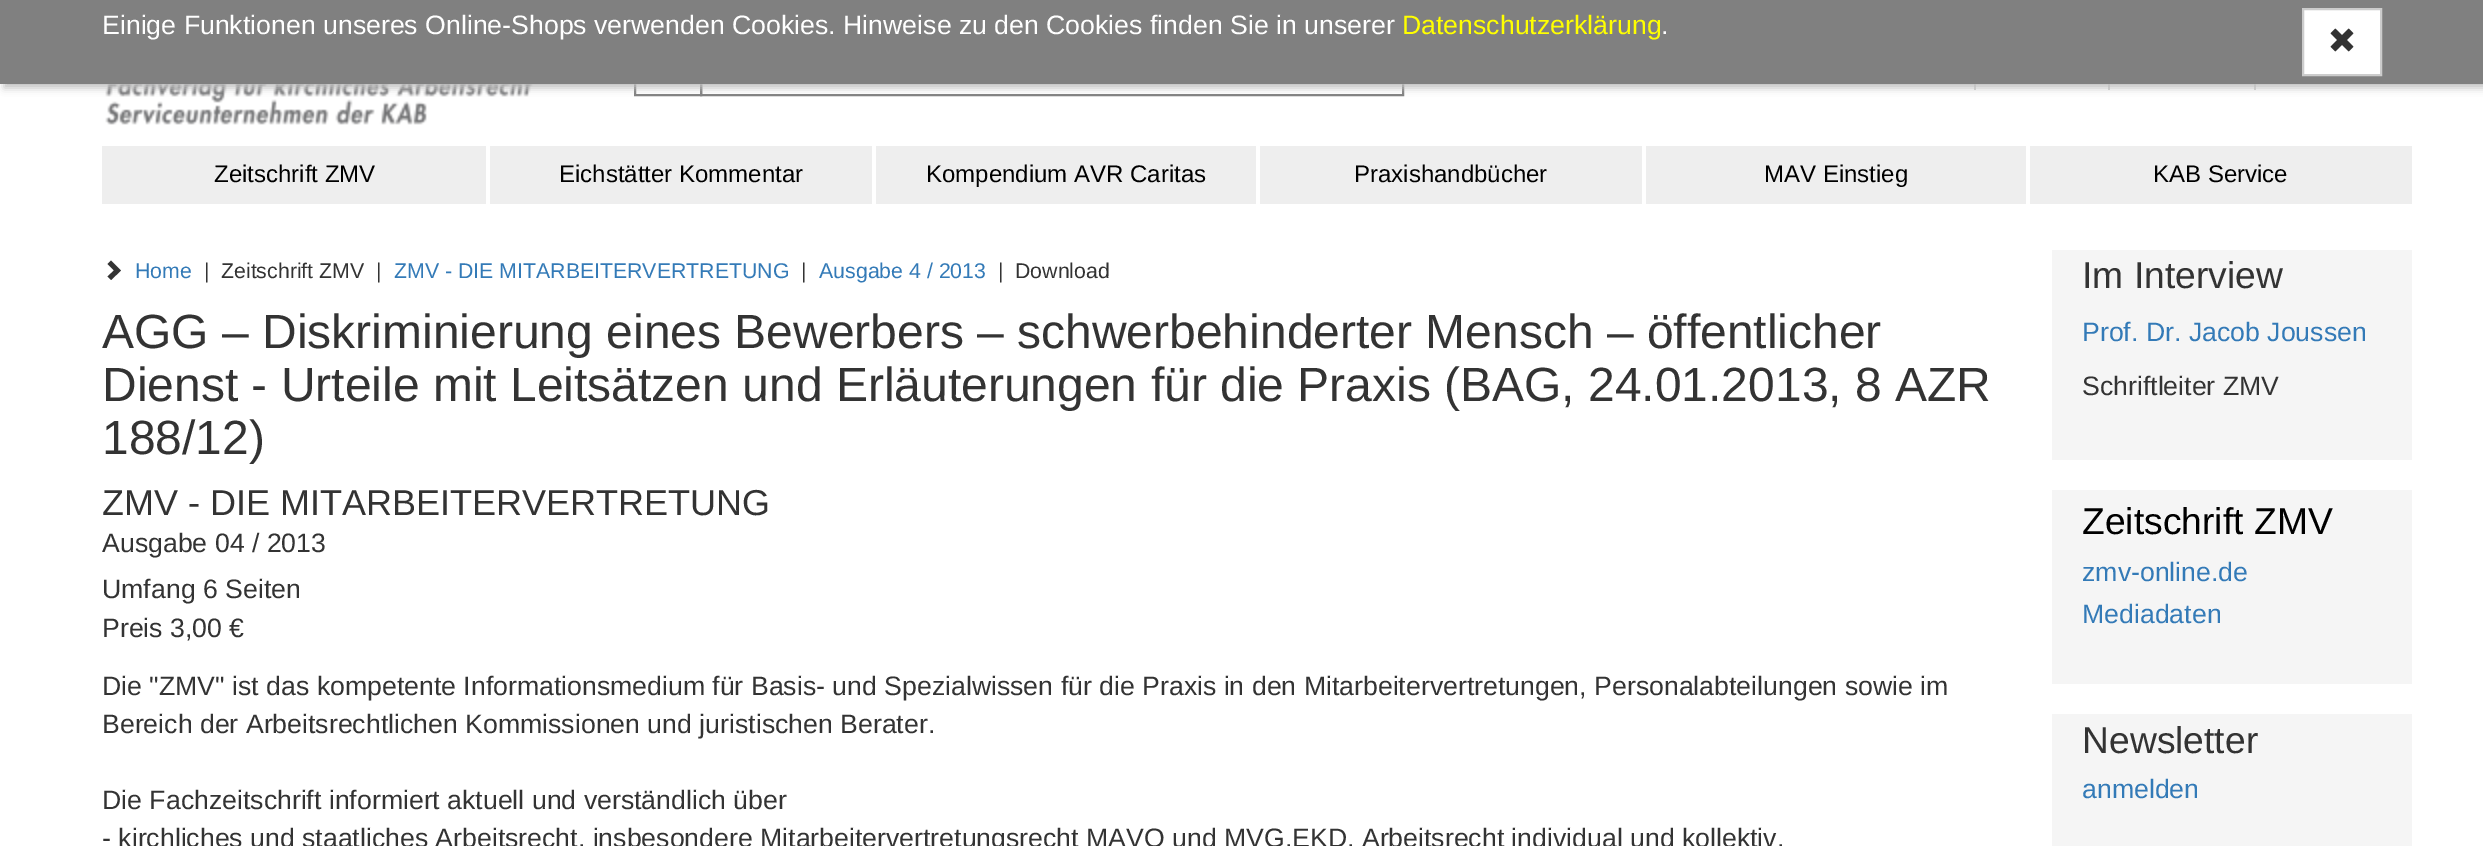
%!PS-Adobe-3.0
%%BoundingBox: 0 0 2483 846
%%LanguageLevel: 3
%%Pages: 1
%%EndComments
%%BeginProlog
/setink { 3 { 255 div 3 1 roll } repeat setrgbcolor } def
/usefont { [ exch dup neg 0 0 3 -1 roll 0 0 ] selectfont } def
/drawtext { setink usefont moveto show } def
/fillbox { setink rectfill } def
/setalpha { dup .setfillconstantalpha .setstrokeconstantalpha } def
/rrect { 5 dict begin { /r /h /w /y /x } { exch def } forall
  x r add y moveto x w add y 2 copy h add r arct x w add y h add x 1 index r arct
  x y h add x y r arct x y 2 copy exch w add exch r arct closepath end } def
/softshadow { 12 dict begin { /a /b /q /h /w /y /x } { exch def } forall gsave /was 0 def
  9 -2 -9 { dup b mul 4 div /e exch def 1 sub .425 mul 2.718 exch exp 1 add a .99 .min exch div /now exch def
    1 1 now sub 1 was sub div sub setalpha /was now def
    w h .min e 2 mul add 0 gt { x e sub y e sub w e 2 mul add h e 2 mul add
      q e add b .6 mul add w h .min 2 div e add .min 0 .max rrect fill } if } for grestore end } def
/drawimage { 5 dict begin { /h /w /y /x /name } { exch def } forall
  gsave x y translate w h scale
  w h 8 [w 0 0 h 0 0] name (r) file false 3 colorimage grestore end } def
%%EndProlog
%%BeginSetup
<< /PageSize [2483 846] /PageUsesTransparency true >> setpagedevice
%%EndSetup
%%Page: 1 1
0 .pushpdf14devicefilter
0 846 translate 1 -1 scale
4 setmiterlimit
0 0 2483 846 255 255 255 fillbox
128 128 128 setink
2 setlinewidth
635 37 66 58 rectstroke
701 37 702 58 rectstroke
(assets/img2.rgb) 105 84 428 41 drawimage
1974 84 2 6 210 210 210 fillbox
2108 84 2 6 210 210 210 fillbox
2254 84 2 6 210 210 210 fillbox
192 192 192 setink
4 4 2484 84 0 4 1 softshadow
0 0 2483 84 128 128 128 fillbox
(Einige Funktionen unseres Online-Shops verwenden Cookies. Hinweise zu den Cookies) 102 34 /LiberationSans-Regular 26.67 255 255 255 drawtext
(finden Sie in unserer) 1150 34 /LiberationSans-Regular 26.67 255 255 255 drawtext
(Datenschutzerklärung) 1402 34 /LiberationSans-Regular 26.67 255 255 0 drawtext
(.) 1661 34 /LiberationSans-Regular 26.67 255 255 255 drawtext
2303 9 moveto 2381 9 lineto 2381 75 lineto 2303 75 lineto closepath gsave fill grestore
204 204 204 setink
stroke
(assets/img1.rgb) 2330 28 24 24 drawimage
102 146 384 58 238 238 238 fillbox
(Zeitschrift ZMV) 214 182 /LiberationSans-Regular 24 0 0 0 drawtext
490 146 382 58 238 238 238 fillbox
(Eichstätter Kommentar) 559 182 /LiberationSans-Regular 24 0 0 0 drawtext
876 146 380 58 238 238 238 fillbox
(Kompendium AVR Caritas) 926 182 /LiberationSans-Regular 24 0 0 0 drawtext
1260 146 382 58 238 238 238 fillbox
(Praxishandbücher) 1354 182 /LiberationSans-Regular 24 0 0 0 drawtext
1646 146 380 58 238 238 238 fillbox
(MAV Einstieg) 1764 182 /LiberationSans-Regular 24 0 0 0 drawtext
2030 146 382 58 238 238 238 fillbox
(KAB Service) 2153 182 /LiberationSans-Regular 24 0 0 0 drawtext
51 51 51 setink
121 270.5 moveto 111 280 lineto 107.5 276.5 lineto 114 270.5 lineto 107.5 264 lineto 111 260.5 lineto closepath fill
(Home) 135 278 /LiberationSans-Regular 21.3 51 122 183 drawtext
(|) 204 278 /LiberationSans-Regular 21.3 51 51 51 drawtext
(Zeitschrift ZMV  |) 221 278 /LiberationSans-Regular 21.3 51 51 51 drawtext
(ZMV - DIE MITARBEITERVERTRETUNG) 394 278 /LiberationSans-Regular 21.3 51 122 183 drawtext
(|) 801 278 /LiberationSans-Regular 21.3 51 51 51 drawtext
(Ausgabe 4 / 2013) 819 278 /LiberationSans-Regular 21.3 51 122 183 drawtext
(|) 998 278 /LiberationSans-Regular 21.3 51 51 51 drawtext
(Download) 1015 278 /LiberationSans-Regular 21.3 51 51 51 drawtext
(AGG – Diskriminierung eines Bewerbers – schwerbehinderter Mensch – öffentlicher) 102 348 /LiberationSans-Regular 48 51 51 51 drawtext
(Dienst - Urteile mit Leitsätzen und Erläuterungen für die Praxis \(BAG, 24.01.2013, 8 AZR) 102 401 /LiberationSans-Regular 48 51 51 51 drawtext
(188/12\)) 102 454 /LiberationSans-Regular 48 51 51 51 drawtext
(ZMV - DIE MITARBEITERVERTRETUNG) 102 515 /LiberationSans-Regular 36 51 51 51 drawtext
(Ausgabe 04 / 2013) 102 552 /LiberationSans-Regular 26.67 51 51 51 drawtext
(Umfang 6 Seiten) 102 598 /LiberationSans-Regular 26.67 51 51 51 drawtext
(Preis 3,00 €) 102 637 /LiberationSans-Regular 26.67 51 51 51 drawtext
(Die "ZMV" ist das kompetente Informationsmedium für Basis- und Spezialwissen für die Praxis in den Mitarbeitervertretungen, Personalabteilungen sowie im) 102 695 /LiberationSans-Regular 26.67 51 51 51 drawtext
(Bereich der Arbeitsrechtlichen Kommissionen und juristischen Berater.) 102 733 /LiberationSans-Regular 26.67 51 51 51 drawtext
(Die Fachzeitschrift informiert aktuell und verständlich über) 102 809 /LiberationSans-Regular 26.67 51 51 51 drawtext
(- kirchliches und staatliches Arbeitsrecht, insbesondere Mitarbeitervertretungsrecht MAVO und MVG.EKD, Arbeitsrecht individual und kollektiv,) 102 847 /LiberationSans-Regular 26.67 51 51 51 drawtext
2052 250 360 210 245 245 245 fillbox
(Im Interview) 2082 288 /LiberationSans-Regular 37.25 51 51 51 drawtext
(Prof. Dr. Jacob Joussen) 2082 341 /LiberationSans-Regular 26.67 51 122 183 drawtext
(Schriftleiter ZMV) 2082 395 /LiberationSans-Regular 26.67 51 51 51 drawtext
2052 490 360 194 245 245 245 fillbox
(Zeitschrift ZMV) 2082 534 /LiberationSans-Regular 37.25 0 0 0 drawtext
(zmv-online.de) 2082 581 /LiberationSans-Regular 26.67 51 122 183 drawtext
(Mediadaten) 2082 623 /LiberationSans-Regular 26.67 51 122 183 drawtext
2052 714 360 132 245 245 245 fillbox
(Newsletter) 2082 753 /LiberationSans-Regular 37.25 51 51 51 drawtext
(anmelden) 2082 798 /LiberationSans-Regular 26.67 51 122 183 drawtext
.poppdf14devicefilter showpage
%%EOF
